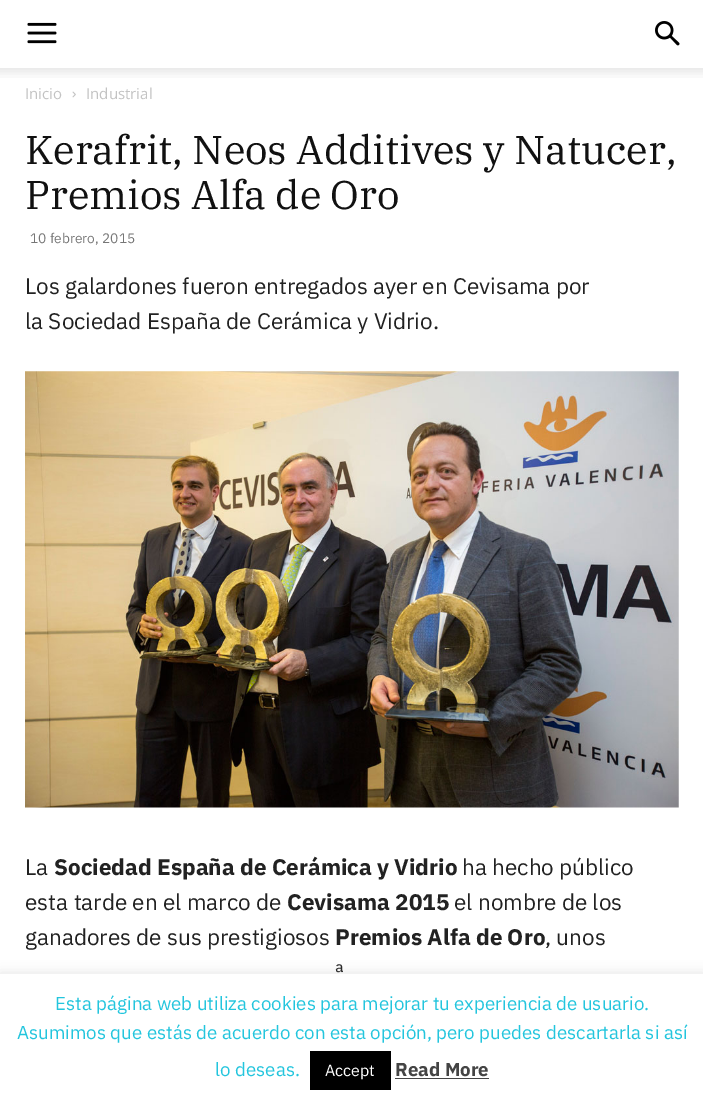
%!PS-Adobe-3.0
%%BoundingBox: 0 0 703 1105
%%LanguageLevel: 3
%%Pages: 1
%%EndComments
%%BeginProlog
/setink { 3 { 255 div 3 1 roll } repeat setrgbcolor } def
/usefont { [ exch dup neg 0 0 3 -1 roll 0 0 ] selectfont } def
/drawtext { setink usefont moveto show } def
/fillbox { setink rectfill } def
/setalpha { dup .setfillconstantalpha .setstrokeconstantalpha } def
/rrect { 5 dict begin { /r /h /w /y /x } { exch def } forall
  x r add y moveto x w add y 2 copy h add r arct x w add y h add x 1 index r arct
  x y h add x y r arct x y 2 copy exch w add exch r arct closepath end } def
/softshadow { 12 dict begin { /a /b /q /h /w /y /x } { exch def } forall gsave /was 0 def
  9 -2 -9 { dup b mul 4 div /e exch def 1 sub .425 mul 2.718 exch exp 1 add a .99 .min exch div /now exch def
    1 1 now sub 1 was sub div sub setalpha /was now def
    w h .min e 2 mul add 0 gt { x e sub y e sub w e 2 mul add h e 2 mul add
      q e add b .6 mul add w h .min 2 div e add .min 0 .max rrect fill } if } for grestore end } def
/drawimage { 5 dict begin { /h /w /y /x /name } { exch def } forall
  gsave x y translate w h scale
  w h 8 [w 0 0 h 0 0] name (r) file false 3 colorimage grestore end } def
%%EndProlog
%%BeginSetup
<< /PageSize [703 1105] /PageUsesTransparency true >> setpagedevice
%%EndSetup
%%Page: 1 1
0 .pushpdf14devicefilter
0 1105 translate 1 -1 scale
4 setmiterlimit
0 0 703 1105 255 255 255 fillbox
(assets/img1.rgb) 27 22 30 22 drawimage
(assets/img2.rgb) 655 21 25 25 drawimage
(assets/img3.rgb) 0 68 703 10 drawimage
(Inicio) 25 99 /OpenSans-Regular 15 195 195 195 drawtext
(assets/img4.rgb) 72 91 4 7 drawimage
(Industrial) 86 99 /OpenSans-Regular 15 195 195 195 drawtext
(Kerafrit, Neos Additives y Natucer,) 25 164 /IBMPlexSerif-Regular 40 17 17 17 drawtext
(Premios Alfa de Oro) 25 209 /IBMPlexSerif-Regular 40 17 17 17 drawtext
(10 febrero, 2015) 30 243 /IBMPlexSans-Regular 13.75 118 118 118 drawtext
(Los galardones fueron entregados ayer en Cevisama por) 25 294 /IBMPlexSans-Regular 22.5 34 34 34 drawtext
(la Sociedad España de Cerámica y Vidrio.) 25 329 /IBMPlexSans-Regular 22.5 34 34 34 drawtext
(assets/img5.rgb) 25 371 654 437 drawimage
(La) 25 875 /IBMPlexSans-Regular 22.5 34 34 34 drawtext
(Sociedad España de Cerámica y Vidrio) 54 875 /IBMPlexSans-Bold 22.5 34 34 34 drawtext
(ha hecho público) 462 875 /IBMPlexSans-Regular 22.5 34 34 34 drawtext
(esta tarde en el marco de) 25 910 /IBMPlexSans-Regular 22.5 34 34 34 drawtext
(Cevisama 2015) 287 910 /IBMPlexSans-Bold 22.5 34 34 34 drawtext
(el nombre de los) 454 910 /IBMPlexSans-Regular 22.5 34 34 34 drawtext
(ganadores de sus prestigiosos) 25 945 /IBMPlexSans-Regular 22.5 34 34 34 drawtext
(Premios Alfa de Oro) 335 945 /IBMPlexSans-Bold 22.5 34 34 34 drawtext
(, unos) 545 945 /IBMPlexSans-Regular 22.5 34 34 34 drawtext
(ª) 335 980 /IBMPlexSans-Regular 22.5 34 34 34 drawtext
172 171 171 setink
0 973 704 131 0 6 0.3 softshadow
0 974 703 131 255 255 255 fillbox
(Esta página web utiliza cookies para mejorar tu experiencia de usuario.) 55 1010 /IBMPlexSans-Regular 18.75 35 197 221 drawtext
(Asumimos que estás de acuerdo con esta opción, pero puedes descartarla si así) 17 1039 /IBMPlexSans-Regular 18.75 35 197 221 drawtext
(lo deseas.) 215 1076 /IBMPlexSans-Regular 18.75 35 197 221 drawtext
310 1051 81 39 0 0 0 fillbox
(Accept) 325 1076 /IBMPlexSans-Regular 16 255 255 255 drawtext
(Read More) 395 1076 /IBMPlexSans-Bold 18.75 68 68 68 drawtext
395 1078 94 1 68 68 68 fillbox
.poppdf14devicefilter showpage
%%EOF
